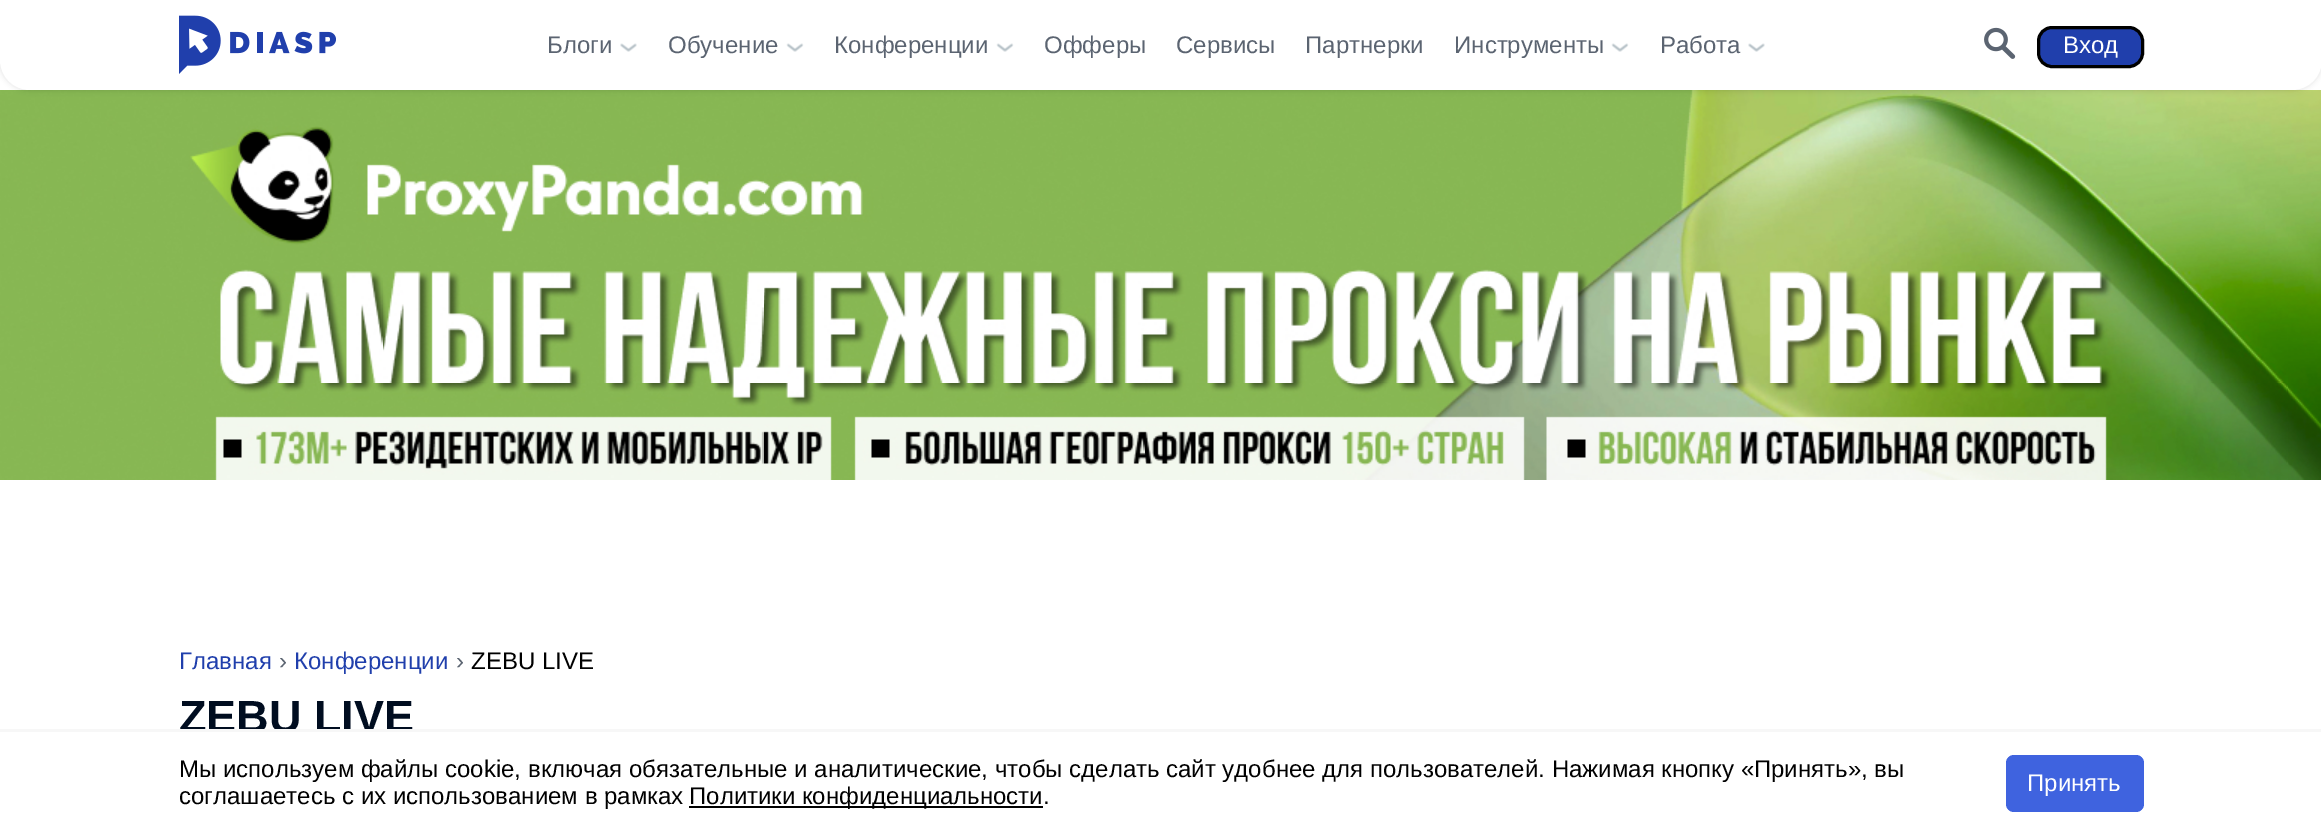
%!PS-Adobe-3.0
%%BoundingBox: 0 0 2321 833
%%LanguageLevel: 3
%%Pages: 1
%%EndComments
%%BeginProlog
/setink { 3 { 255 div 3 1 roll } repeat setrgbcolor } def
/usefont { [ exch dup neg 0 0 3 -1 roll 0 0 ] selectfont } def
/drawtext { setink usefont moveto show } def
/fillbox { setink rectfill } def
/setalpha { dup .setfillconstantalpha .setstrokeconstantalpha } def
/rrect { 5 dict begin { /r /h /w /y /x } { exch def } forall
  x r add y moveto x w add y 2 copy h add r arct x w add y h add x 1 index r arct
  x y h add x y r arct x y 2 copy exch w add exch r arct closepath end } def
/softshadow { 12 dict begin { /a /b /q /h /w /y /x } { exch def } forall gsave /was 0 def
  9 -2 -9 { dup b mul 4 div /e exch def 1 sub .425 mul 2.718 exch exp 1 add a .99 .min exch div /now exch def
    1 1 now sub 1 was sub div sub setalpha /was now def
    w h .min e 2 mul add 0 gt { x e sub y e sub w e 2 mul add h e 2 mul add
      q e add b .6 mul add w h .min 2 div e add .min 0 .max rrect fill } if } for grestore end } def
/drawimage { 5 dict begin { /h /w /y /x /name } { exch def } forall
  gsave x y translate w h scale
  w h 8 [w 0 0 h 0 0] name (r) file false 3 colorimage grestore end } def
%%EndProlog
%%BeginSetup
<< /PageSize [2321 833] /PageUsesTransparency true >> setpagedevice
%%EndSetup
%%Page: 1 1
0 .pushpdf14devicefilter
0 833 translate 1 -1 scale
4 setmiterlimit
0 0 2321 833 255 255 255 fillbox
(assets/img5.rgb) 0 90 2321 390 drawimage
0 0 0 setink
0 0 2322 90 30 3 0.15 softshadow
255 255 255 setink
0 0 moveto 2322 0 lineto 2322 60 lineto 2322 76.5 2308.5 90 2292 90 curveto 30 90 lineto 13.5 90 0 76.5 0 60 curveto closepath fill
(assets/img1.rgb) 179 15 157 59 drawimage
(Блоги) 547 53 /LiberationSans-Regular 24 91 100 113 drawtext
(assets/img2.rgb) 620 43 17 9 drawimage
(Обучение) 668 53 /LiberationSans-Regular 24 91 100 113 drawtext
(assets/img3.rgb) 786 43 18 9 drawimage
(Конференции) 834 53 /LiberationSans-Regular 24 91 100 113 drawtext
(assets/img3.rgb) 996 43 18 9 drawimage
(Офферы) 1044 53 /LiberationSans-Regular 24 91 100 113 drawtext
(Сервисы) 1176 53 /LiberationSans-Regular 24 91 100 113 drawtext
(Партнерки) 1305 53 /LiberationSans-Regular 24 91 100 113 drawtext
(Инструменты) 1454 53 /LiberationSans-Regular 24 91 100 113 drawtext
(assets/img3.rgb) 1611 43 18 9 drawimage
(Работа) 1660 53 /LiberationSans-Regular 24 91 100 113 drawtext
(assets/img2.rgb) 1748 43 17 9 drawimage
(assets/img4.rgb) 1984 27 32 32 drawimage
32 63 172 setink
2038.5 27.5 104 39 13.5 rrect gsave fill grestore
0 0 0 setink
3 setlinewidth
stroke
(Вход) 2063 53 /LiberationSans-Regular 24 255 255 255 drawtext
(Главная) 179 669 /LiberationSans-Regular 24 32 63 172 drawtext
(›) 279 669 /LiberationSans-Regular 24 91 100 113 drawtext
(Конференции) 294 669 /LiberationSans-Regular 24 32 63 172 drawtext
(›) 456 669 /LiberationSans-Regular 24 91 100 113 drawtext
(ZEBU LIVE) 471 669 /LiberationSans-Regular 24 0 0 0 drawtext
(ZEBU LIVE) 179 732 /LiberationSans-Bold 45 0 13 32 drawtext
280 732 9 1 255 255 255 fillbox
0 729 2321 3 247 247 247 fillbox
(Мы используем файлы cookie, включая обязательные и аналитические, чтобы сделать сайт удобнее для пользователей. Нажимая кнопку «Принять», вы) 179 777 /LiberationSans-Regular 24 0 0 0 drawtext
(соглашаетесь с их использованием в рамках) 179 804 /LiberationSans-Regular 24 0 0 0 drawtext
689 806 354 2 0 0 0 fillbox
(Политики конфиденциальности.) 689 804 /LiberationSans-Regular 24 0 0 0 drawtext
63 99 223 setink
2006 755 138 57 8 rrect fill
(Принять) 2027 791 /LiberationSans-Regular 24 255 255 255 drawtext
.poppdf14devicefilter showpage
%%EOF
